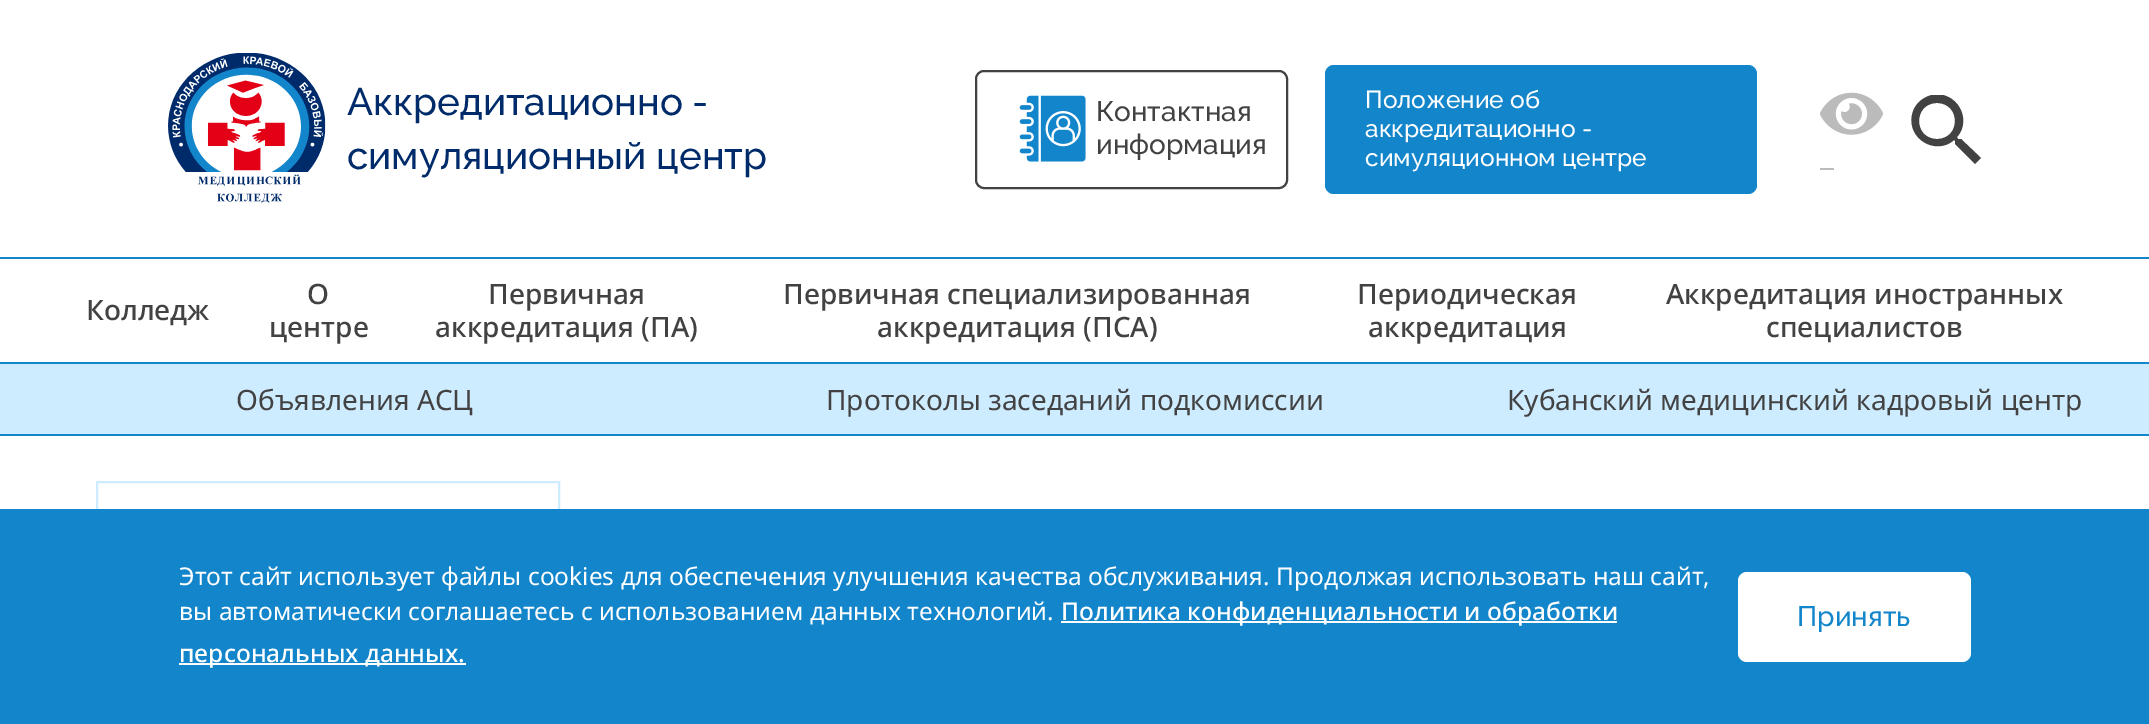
%!PS-Adobe-3.0
%%BoundingBox: 0 0 2149 724
%%LanguageLevel: 3
%%Pages: 1
%%EndComments
%%BeginProlog
/setink { 3 { 255 div 3 1 roll } repeat setrgbcolor } def
/usefont { [ exch dup neg 0 0 3 -1 roll 0 0 ] selectfont } def
/drawtext { setink usefont moveto show } def
/fillbox { setink rectfill } def
/rrect { 5 dict begin { /r /h /w /y /x } { exch def } forall
  x r add y moveto x w add y 2 copy h add r arct x w add y h add x 1 index r arct
  x y h add x y r arct x y 2 copy exch w add exch r arct closepath end } def
/drawimage { 5 dict begin { /h /w /y /x /name } { exch def } forall
  gsave x y translate w h scale
  w h 8 [w 0 0 h 0 0] name (r) file false 3 colorimage grestore end } def
%%EndProlog
%%BeginSetup
<< /PageSize [2149 724] >> setpagedevice
%%EndSetup
%%Page: 1 1
0 724 translate 1 -1 scale
4 setmiterlimit
0 0 2149 724 255 255 255 fillbox
0 257 2149 2 19 133 203 fillbox
(assets/img1.rgb) 168 53 158 151 drawimage
(Аккредитационно -) 347 115 /Raleway-Medium 38.5 0 43 107 drawtext
(симуляционный центр) 347 169 /Raleway-Medium 38.5 0 43 107 drawtext
67 66 66 setink
2 setlinewidth
976 71 311 117 8 rrect stroke
(assets/img2.rgb) 1019 95 67 67 drawimage
(Контактная) 1096 121 /Raleway-Medium 28 67 66 66 drawtext
(информация) 1096 154 /Raleway-Medium 28 67 66 66 drawtext
19 133 203 setink
1325 65 432 129 9 rrect fill
(Положение об) 1365 108 /Raleway-Medium 24.5 255 255 255 drawtext
(аккредитационно -) 1365 137 /Raleway-Medium 24.5 255 255 255 drawtext
(симуляционном центре) 1365 166 /Raleway-Medium 24.5 255 255 255 drawtext
(assets/img3.rgb) 1820 92 63 43 drawimage
1820 168 14 2 187 187 187 fillbox
gsave
1911 95 70 70 rectclip
66 66 66 setink
1961 139 moveto 1958 139 lineto 1957 137 lineto 1973 119 1956 90 1932 95 curveto 1927 96 1922 99 1919 102 curveto 1915 106 1913 110 1912 115 curveto 1907 139 1936 156 1954 140 curveto 1955 141 lineto 1955 144 lineto 1975 164 lineto 1981 158 lineto closepath 1937 139 moveto 1913 139 1913 103 1937 103 curveto 1961 103 1961 139 1937 139 curveto closepath fill
grestore
(Колледж) 86 320 /NotoSans-Medium 28 67 66 66 drawtext
(О) 307 304 /NotoSans-Medium 28 67 66 66 drawtext
(центре) 269 337 /NotoSans-Medium 28 67 66 66 drawtext
(Первичная) 488 304 /NotoSans-Medium 28 67 66 66 drawtext
(аккредитация \(ПА\)) 435 337 /NotoSans-Medium 28 67 66 66 drawtext
(Первичная специализированная) 783 304 /NotoSans-Medium 28 67 66 66 drawtext
(аккредитация \(ПСА\)) 877 337 /NotoSans-Medium 28 67 66 66 drawtext
(Периодическая) 1357 304 /NotoSans-Medium 28 67 66 66 drawtext
(аккредитация) 1368 337 /NotoSans-Medium 28 67 66 66 drawtext
(Аккредитация иностранных) 1666 304 /NotoSans-Medium 28 67 66 66 drawtext
(специалистов) 1766 337 /NotoSans-Medium 28 67 66 66 drawtext
0 364 2149 70 206 236 255 fillbox
0 362 2149 2 19 133 203 fillbox
0 434 2149 2 19 133 203 fillbox
(Объявления АСЦ) 236 410 /NotoSans-Regular 28 67 66 66 drawtext
(Протоколы заседаний подкомиссии) 826 410 /NotoSans-Regular 28 67 66 66 drawtext
(Кубанский медицинский кадровый центр) 1507 410 /NotoSans-Regular 28 67 66 66 drawtext
206 236 255 setink
97 482 462 82 rectstroke
0 509 2149 215 19 133 203 fillbox
(Этот сайт использует файлы cookies для обеспечения улучшения качества обслуживания. Продолжая использовать наш сайт,) 179 585 /NotoSans-Regular 24.5 255 255 255 drawtext
(вы автоматически соглашаетесь с использованием данных технологий.) 179 620 /NotoSans-Regular 24.5 255 255 255 drawtext
1061 621 556 2 255 255 255 fillbox
(Политика конфиденциальности и обработки) 1061 620 /NotoSans-Medium 24.5 255 255 255 drawtext
179 663 287 2 255 255 255 fillbox
(персональных данных.) 179 662 /NotoSans-Medium 24.5 255 255 255 drawtext
1738 572 233 90 9 rrect fill
(Принять) 1797 626 /Raleway-Medium 28 19 133 203 drawtext
showpage
%%EOF
